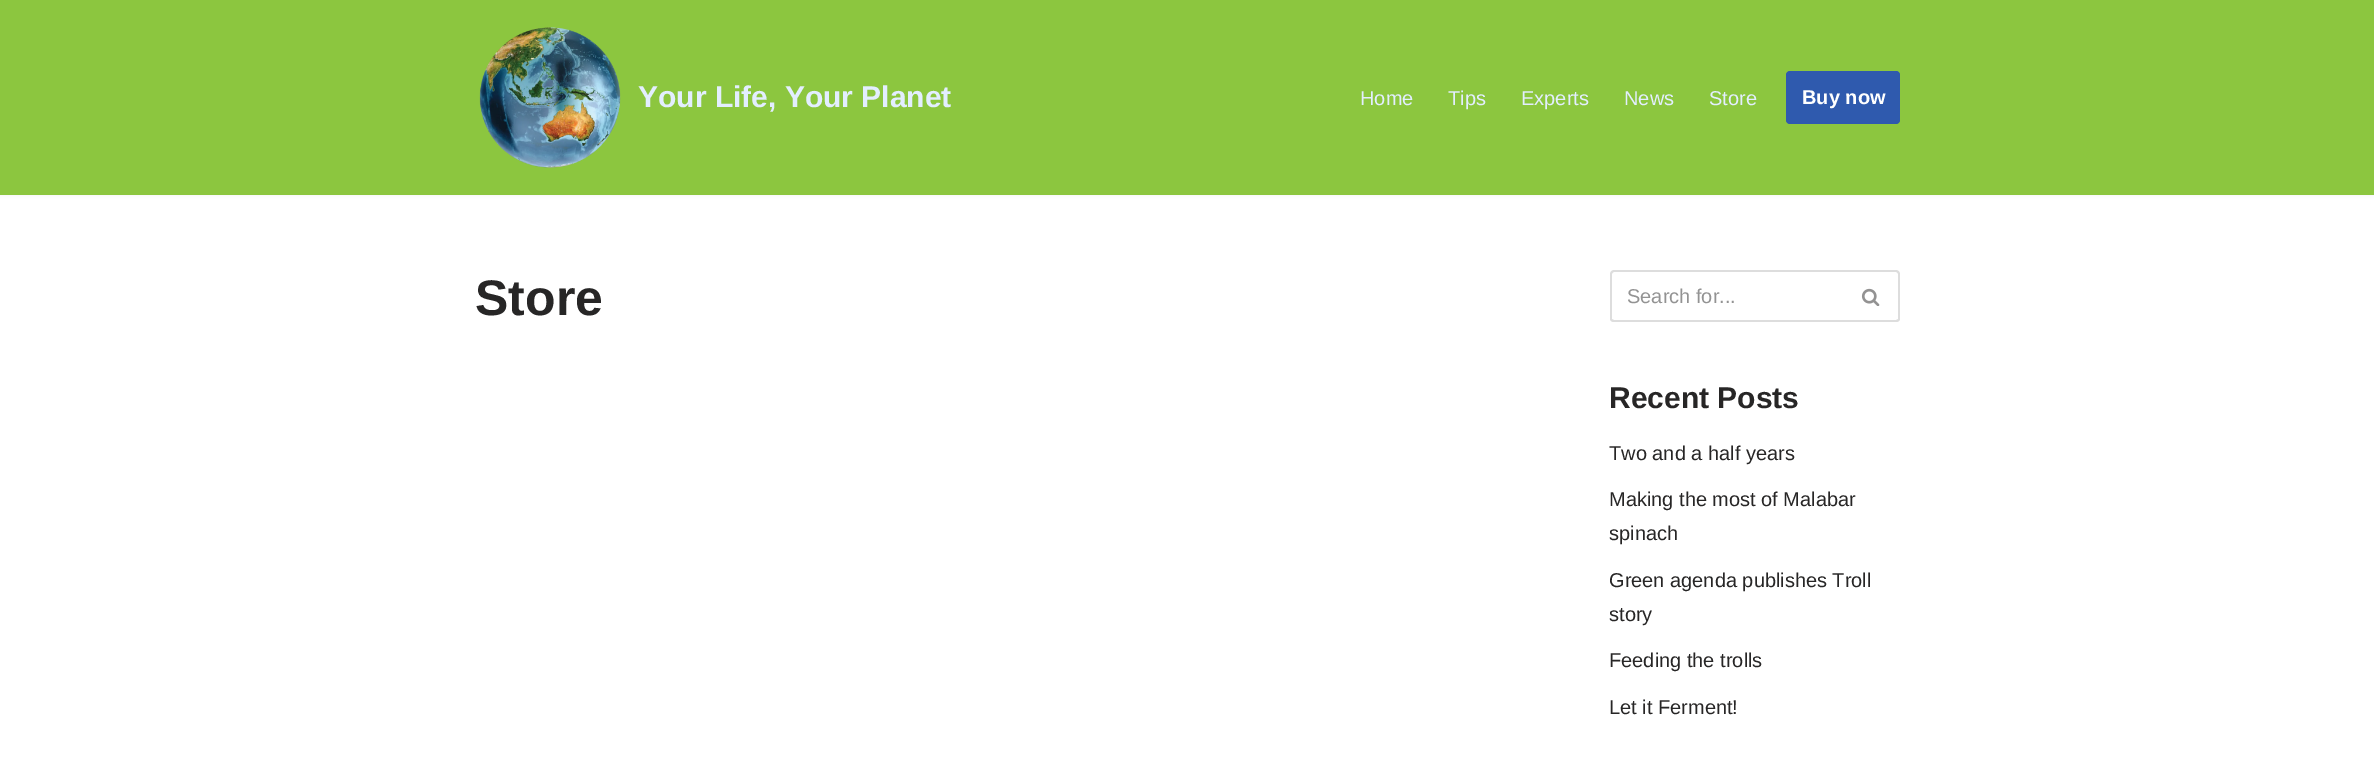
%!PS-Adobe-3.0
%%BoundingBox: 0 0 2374 773
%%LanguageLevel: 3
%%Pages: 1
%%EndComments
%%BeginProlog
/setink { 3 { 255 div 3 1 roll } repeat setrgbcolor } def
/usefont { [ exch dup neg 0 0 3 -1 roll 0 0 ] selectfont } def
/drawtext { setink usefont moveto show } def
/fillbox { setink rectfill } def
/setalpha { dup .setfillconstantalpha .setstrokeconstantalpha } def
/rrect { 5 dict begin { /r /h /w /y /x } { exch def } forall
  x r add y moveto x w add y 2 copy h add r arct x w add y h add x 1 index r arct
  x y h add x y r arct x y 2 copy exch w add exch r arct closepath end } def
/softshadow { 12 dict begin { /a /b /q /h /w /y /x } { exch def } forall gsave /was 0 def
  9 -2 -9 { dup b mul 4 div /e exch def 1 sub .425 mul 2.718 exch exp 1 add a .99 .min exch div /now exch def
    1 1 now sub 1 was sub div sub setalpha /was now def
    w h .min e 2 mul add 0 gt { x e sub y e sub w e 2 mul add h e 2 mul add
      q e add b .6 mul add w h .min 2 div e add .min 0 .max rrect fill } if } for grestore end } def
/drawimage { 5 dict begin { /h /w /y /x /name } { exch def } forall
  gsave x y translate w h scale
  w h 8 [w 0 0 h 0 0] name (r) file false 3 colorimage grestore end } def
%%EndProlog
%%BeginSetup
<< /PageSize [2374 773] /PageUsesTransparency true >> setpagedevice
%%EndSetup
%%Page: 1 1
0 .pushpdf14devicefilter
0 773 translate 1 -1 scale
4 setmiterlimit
0 0 2374 773 255 255 255 fillbox
0 0 0 setink
0 -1 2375 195 0 2 0.1 softshadow
0 0 2374 195 140 198 63 fillbox
(assets/img1.rgb) 479 27 142 141 drawimage
(Your Life, Your Planet) 638 107 /LiberationSans-Bold 30 227 238 255 drawtext
(Home) 1360 105 /LiberationSans-Regular 20 227 238 255 drawtext
(Tips) 1448 105 /LiberationSans-Regular 20 227 238 255 drawtext
(Experts) 1521 105 /LiberationSans-Regular 20 227 238 255 drawtext
(News) 1624 105 /LiberationSans-Regular 20 227 238 255 drawtext
(Store) 1709 105 /LiberationSans-Regular 20 227 238 255 drawtext
47 90 174 setink
1786 71 114 53 4 rrect fill
(Buy now) 1802 104 /LiberationSans-Bold 20 255 255 255 drawtext
(Store) 475 315 /LiberationSans-Bold 50 39 38 38 drawtext
221 221 221 setink
1614 270 moveto 1844 270 lineto 1844 322 lineto 1614 322 lineto 1612 322 1610 321 1610 319 curveto 1610 274 lineto 1610 272 1612 270 1614 270 curveto closepath 1614 272 moveto 1844 272 lineto 1844 320 lineto 1614 320 lineto 1613 320 1612 319 1612 319 curveto 1612 274 lineto 1612 273 1613 272 1614 272 curveto closepath eofill
(Search for...) 1627 303 /LiberationSans-Regular 20 147 147 147 drawtext
221 221 221 setink
1844 270 moveto 1896 270 lineto 1898 270 1900 272 1900 274 curveto 1900 319 lineto 1900 321 1898 322 1896 322 curveto 1844 322 lineto closepath 1844 272 moveto 1896 272 lineto 1897 272 1898 273 1898 274 curveto 1898 319 lineto 1898 319 1897 320 1896 320 curveto 1844 320 lineto closepath eofill
(assets/img2.rgb) 1861 288 19 18 drawimage
(Recent Posts) 1609 408 /LiberationSans-Bold 30 39 38 38 drawtext
(Two and a half years) 1609 460 /LiberationSans-Regular 20 39 38 38 drawtext
(Making the most of Malabar) 1609 506 /LiberationSans-Regular 20 39 38 38 drawtext
(spinach) 1609 540 /LiberationSans-Regular 20 39 38 38 drawtext
(Green agenda publishes Troll) 1609 587 /LiberationSans-Regular 20 39 38 38 drawtext
(story) 1609 621 /LiberationSans-Regular 20 39 38 38 drawtext
(Feeding the trolls) 1609 667 /LiberationSans-Regular 20 39 38 38 drawtext
(Let it Ferment!) 1609 714 /LiberationSans-Regular 20 39 38 38 drawtext
.poppdf14devicefilter showpage
%%EOF
